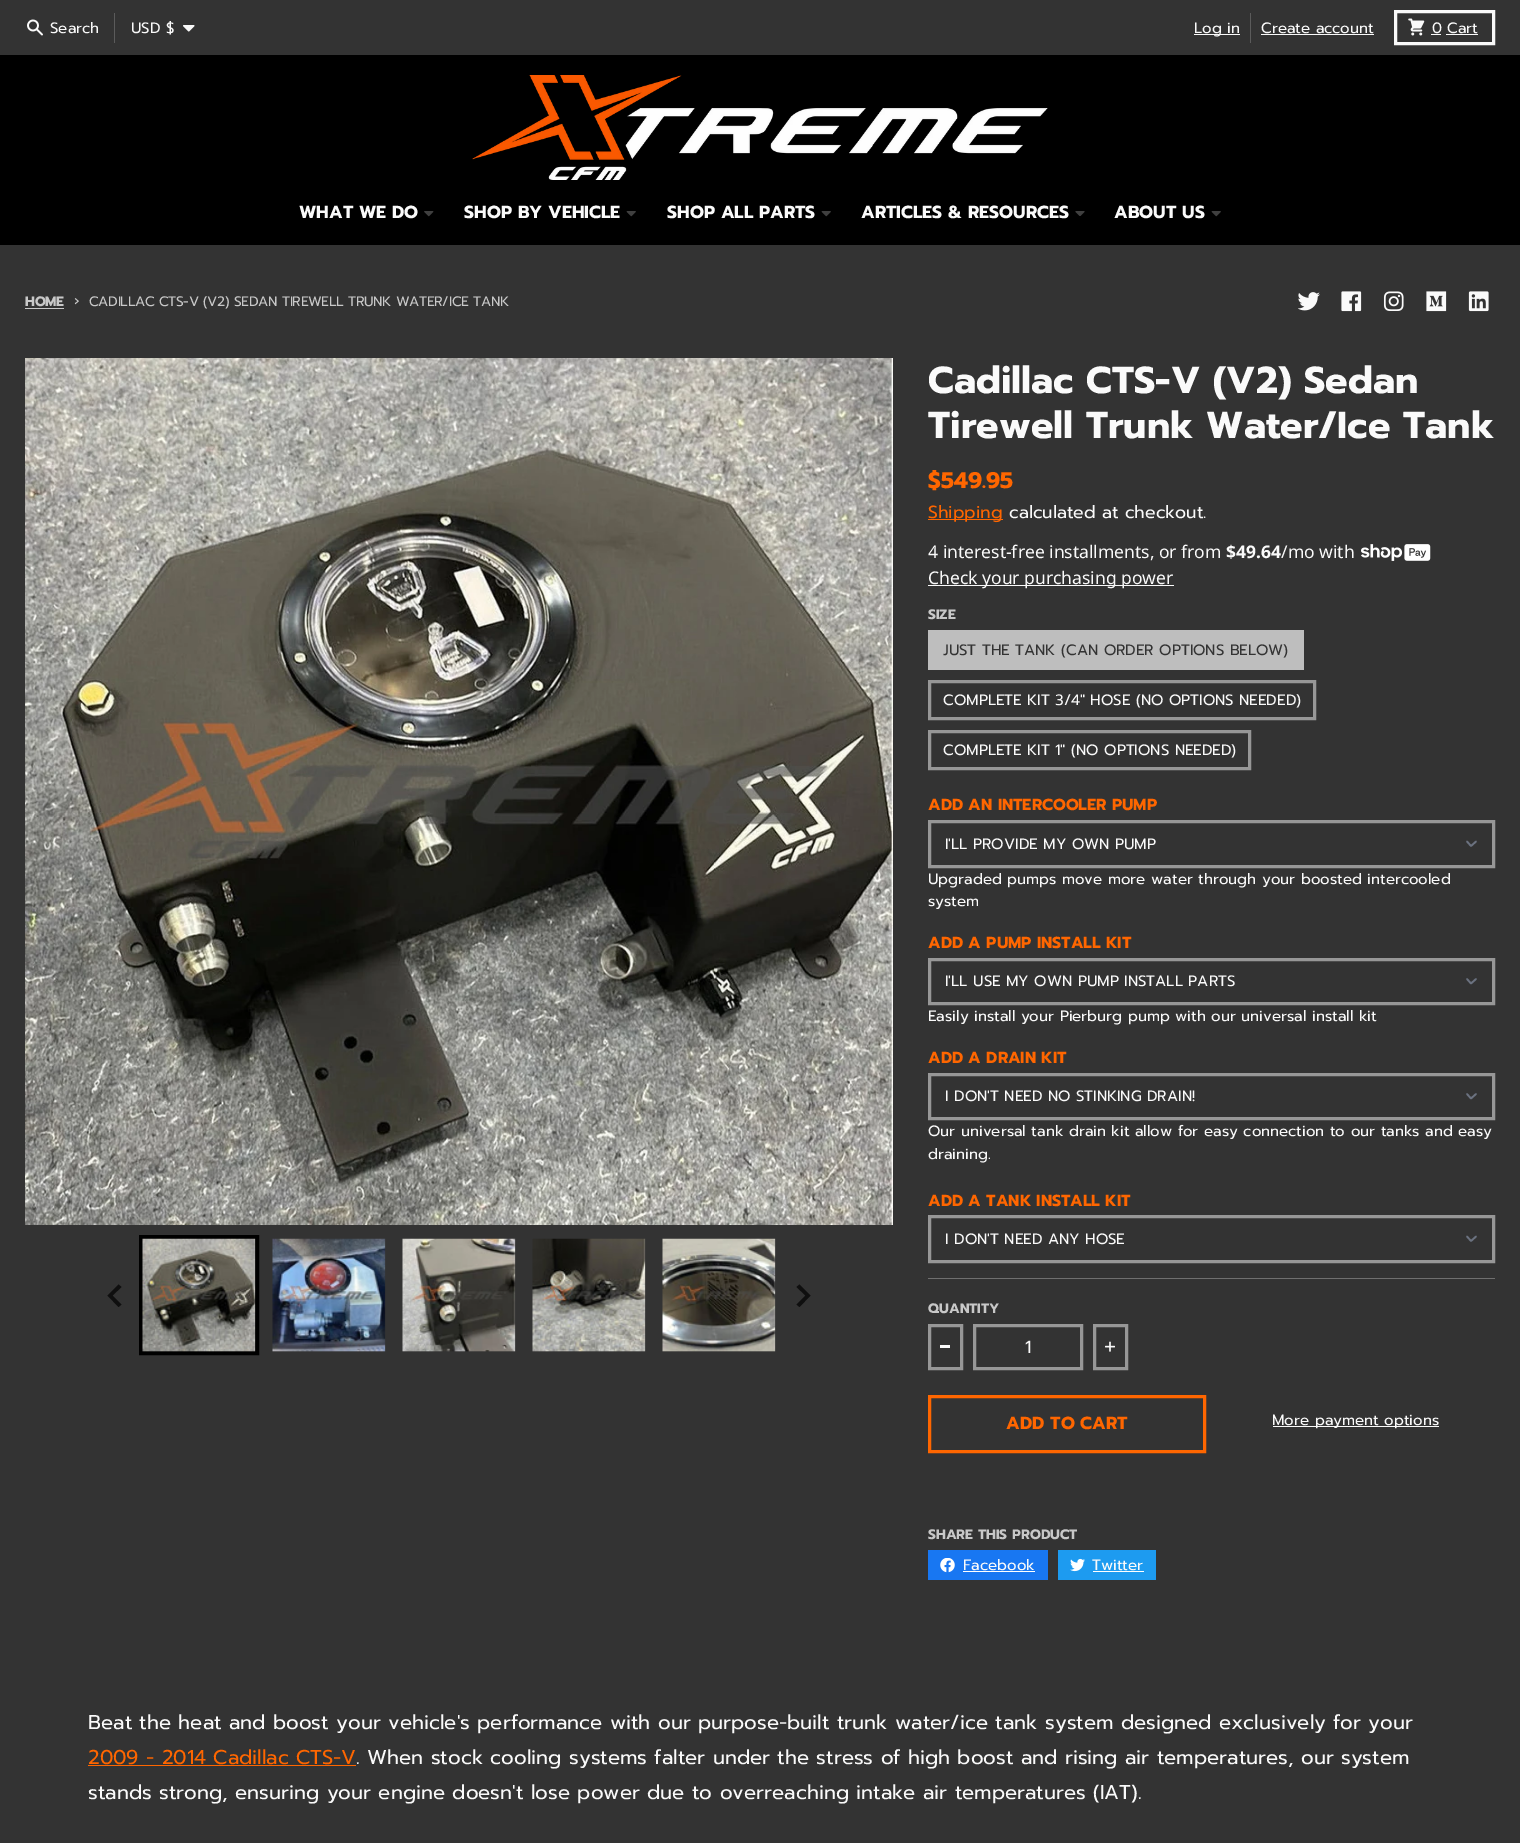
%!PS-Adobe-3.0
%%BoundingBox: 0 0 1520 1843
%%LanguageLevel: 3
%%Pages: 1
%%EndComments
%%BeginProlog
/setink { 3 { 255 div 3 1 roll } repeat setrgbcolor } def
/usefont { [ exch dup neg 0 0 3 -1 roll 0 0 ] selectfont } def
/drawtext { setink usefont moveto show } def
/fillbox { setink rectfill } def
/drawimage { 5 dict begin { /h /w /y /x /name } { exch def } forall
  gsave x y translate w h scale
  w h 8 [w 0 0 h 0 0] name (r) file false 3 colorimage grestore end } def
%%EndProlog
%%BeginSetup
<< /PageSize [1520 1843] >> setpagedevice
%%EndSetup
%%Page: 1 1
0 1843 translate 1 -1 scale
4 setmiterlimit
0 0 1520 1843 0 0 0 fillbox
0 0 1520 55 51 51 51 fillbox
(assets/img1.rgb) 27 19 16 17 drawimage
(Search) 50 33 /Prompt-Regular 15 250 250 250 drawtext
114 13 1 30 91 91 91 fillbox
(USD $) 131 33 /Prompt-Regular 15 250 250 250 drawtext
(assets/img2.rgb) 183 25 12 7 drawimage
1194 34 46 1 250 250 250 fillbox
(Log in) 1194 33 /Prompt-Regular 15 250 250 250 drawtext
1250 13 1 30 91 91 91 fillbox
(Create account) 1261 33 /Prompt-Regular 15 250 250 250 drawtext
1261 34 113 1 250 250 250 fillbox
3 setlinewidth
1395.5 11.5 98 32 rectstroke
(assets/img3.rgb) 1408 18 17 18 drawimage
(0) 1432 33 /Prompt-Regular 15 250 250 250 drawtext
1431 34 10 1 250 250 250 fillbox
(Cart) 1447 33 /Prompt-Regular 15 250 250 250 drawtext
1446 34 32 1 250 250 250 fillbox
(assets/img4.rgb) 472 75 576 105 drawimage
(WHAT WE DO) 299 218 /Prompt-Bold 17.5 250 250 250 drawtext
(assets/img5.rgb) 424 211 10 6 drawimage
(SHOP BY VEHICLE) 464 218 /Prompt-Bold 17.5 250 250 250 drawtext
(assets/img6.rgb) 626 211 10 6 drawimage
(SHOP ALL PARTS) 667 218 /Prompt-Bold 17.5 250 250 250 drawtext
(assets/img6.rgb) 821 211 10 6 drawimage
(ARTICLES & RESOURCES) 861 218 /Prompt-Bold 17.5 250 250 250 drawtext
(assets/img7.rgb) 1075 211 10 5 drawimage
(ABOUT US) 1114 218 /Prompt-Bold 17.5 250 250 250 drawtext
(assets/img6.rgb) 1211 211 10 6 drawimage
0 245 1520 1598 51 51 51 fillbox
/Prompt-Bold 13.75 usefont
200 200 200 setink
25 306 moveto -0.35 0 (HOME) ashow
25 308 39 1 200 200 200 fillbox
/Prompt-Regular 15 usefont
74 306 moveto -0.35 0 (›) ashow
/Prompt-Regular 13.75 usefont
89 306 moveto -0.35 0 (CADILLAC CTS-V \(V2\) SEDAN TIREWELL TRUNK WATER/ICE TANK) ashow
(assets/img8.rgb) 1298 292 22 19 drawimage
(assets/img9.rgb) 1341 291 21 21 drawimage
(assets/img10.rgb) 1383 291 21 20 drawimage
(assets/img11.rgb) 1426 291 21 21 drawimage
(assets/img12.rgb) 1468 291 21 21 drawimage
(assets/img13.rgb) 25 358 868 867 drawimage
0 0 0 setink
4 setlinewidth
141 1237 116 116 rectstroke
(assets/img14.rgb) 142 1238 114 114 drawimage
(assets/img15.rgb) 272 1238 114 114 drawimage
(assets/img16.rgb) 402 1238 114 114 drawimage
(assets/img17.rgb) 532 1238 114 114 drawimage
(assets/img18.rgb) 662 1238 114 114 drawimage
15 15 15 setink
118.5 1284.5 moveto 121.5 1287 lineto 112.5 1295.5 lineto 121.5 1304.5 lineto 118.5 1307 lineto 107.5 1295.5 lineto closepath fill
799.5 1284.5 moveto 796.5 1287 lineto 805.5 1295.5 lineto 796.5 1304.5 lineto 799.5 1307 lineto 810.5 1295.5 lineto closepath fill
(Cadillac CTS-V \(V2\) Sedan) 928 393 /Prompt-Bold 37.5 250 250 250 drawtext
(Tirewell Trunk Water/Ice Tank) 928 438 /Prompt-Bold 37.5 250 250 250 drawtext
($549.95) 928 488 /Prompt-Bold 22.5 255 102 0 drawtext
928 519 75 1 255 102 0 fillbox
(Shipping) 928 518 /Prompt-Regular 17.5 255 102 0 drawtext
(calculated at checkout.) 1009 518 /Prompt-Regular 17.5 250 250 250 drawtext
(4 interest-free installments, or from) 928 558 /NotoSans-Regular 17.5 250 250 250 drawtext
($49.64) 1226 558 /NotoSans-Bold 17.5 250 250 250 drawtext
(/mo with) 1281 558 /NotoSans-Regular 17.5 250 250 250 drawtext
(assets/img19.rgb) 1361 544 70 17 drawimage
928 585 246 1 250 250 250 fillbox
(Check your purchasing power) 928 584 /NotoSans-Regular 17.5 250 250 250 drawtext
(SIZE) 928 619 /Prompt-Bold 13.75 200 200 200 drawtext
928 630 376 40 190 190 190 fillbox
(JUST THE TANK \(CAN ORDER OPTIONS BELOW\)) 943 655 /Prompt-Regular 15 51 51 51 drawtext
151 151 151 setink
3 setlinewidth
929.5 681.5 385 37 rectstroke
(COMPLETE KIT 3/4" HOSE \(NO OPTIONS NEEDED\)) 943 705 /Prompt-Regular 15 250 250 250 drawtext
151 151 151 setink
929.5 731.5 320 37 rectstroke
(COMPLETE KIT 1" \(NO OPTIONS NEEDED\)) 943 755 /Prompt-Regular 15 250 250 250 drawtext
(ADD AN INTERCOOLER PUMP) 928 810 /Prompt-Bold 16 255 102 0 drawtext
107 114 128 setink
1.7 setlinewidth
1 setlinecap
1 setlinejoin
1467 841.5 moveto 1471 846 lineto 1476 841.5 lineto stroke
151 151 151 setink
3 setlinewidth
0 setlinecap
0 setlinejoin
929.5 821.5 564 45 rectstroke
(I'LL PROVIDE MY OWN PUMP) 945 849 /Prompt-Regular 15 250 250 250 drawtext
(Upgraded pumps move more water through your boosted intercooled) 928 884 /Prompt-Regular 15 250 250 250 drawtext
(system) 928 906 /Prompt-Regular 15 250 250 250 drawtext
(ADD A PUMP INSTALL KIT) 928 948 /Prompt-Bold 16 255 102 0 drawtext
107 114 128 setink
1.7 setlinewidth
1 setlinecap
1 setlinejoin
1467 979 moveto 1471 983.5 lineto 1476 979 lineto stroke
151 151 151 setink
3 setlinewidth
0 setlinecap
0 setlinejoin
929.5 959.5 564 44 rectstroke
(I'LL USE MY OWN PUMP INSTALL PARTS) 945 986 /Prompt-Regular 15 250 250 250 drawtext
(Easily install your Pierburg pump with our universal install kit) 928 1021 /Prompt-Regular 15 250 250 250 drawtext
(ADD A DRAIN KIT) 928 1063 /Prompt-Bold 16 255 102 0 drawtext
107 114 128 setink
1.7 setlinewidth
1 setlinecap
1 setlinejoin
1467 1094 moveto 1471 1098.5 lineto 1476 1094 lineto stroke
151 151 151 setink
3 setlinewidth
0 setlinecap
0 setlinejoin
929.5 1074.5 564 44 rectstroke
(I DON'T NEED NO STINKING DRAIN!) 945 1101 /Prompt-Regular 15 250 250 250 drawtext
(Our universal tank drain kit allow for easy connection to our tanks and easy) 928 1136 /Prompt-Regular 15 250 250 250 drawtext
(draining.) 928 1159 /Prompt-Regular 15 250 250 250 drawtext
(ADD A TANK INSTALL KIT) 928 1206 /Prompt-Bold 16 255 102 0 drawtext
107 114 128 setink
1.7 setlinewidth
1 setlinecap
1 setlinejoin
1467 1236.5 moveto 1471 1241 lineto 1476 1236.5 lineto stroke
151 151 151 setink
3 setlinewidth
0 setlinecap
0 setlinejoin
929.5 1216.5 564 45 rectstroke
(I DON'T NEED ANY HOSE) 945 1244 /Prompt-Regular 15 250 250 250 drawtext
928 1278 567 1 111 111 111 fillbox
(QUANTITY) 928 1313 /Prompt-Bold 13.75 200 200 200 drawtext
151 151 151 setink
929.5 1325.5 32 43 rectstroke
940 1345 10 3 250 250 250 fillbox
151 151 151 setink
974.5 1325.5 107 43 rectstroke
(1) 1025 1353 /Prompt-Regular 17.5 250 250 250 drawtext
151 151 151 setink
1094.5 1325.5 32 43 rectstroke
(assets/img20.rgb) 1105 1341 10 11 drawimage
255 102 0 setink
929.5 1396.5 275 55 rectstroke
(ADD TO CART) 1006 1429 /Prompt-Bold 17.5 255 102 0 drawtext
1273 1426 166 1 250 250 250 fillbox
(More payment options) 1272 1425 /Prompt-Regular 15 250 250 250 drawtext
(SHARE THIS PRODUCT) 928 1539 /Prompt-Bold 13.75 200 200 200 drawtext
928 1550 120 30 24 119 242 fillbox
(assets/img21.rgb) 940 1558 15 15 drawimage
(Facebook) 963 1570 /Prompt-Regular 15 250 250 250 drawtext
963 1571 72 1 255 255 255 fillbox
1058 1550 98 30 29 155 240 fillbox
(assets/img22.rgb) 1070 1558 15 14 drawimage
(Twitter) 1092 1570 /Prompt-Regular 15 250 250 250 drawtext
1093 1571 51 1 255 255 255 fillbox
(Beat the heat and boost your vehicle's performance with our purpose-built trunk water/ice tank system designed exclusively for your) 88 1729 /Prompt-Regular 20 250 250 250 drawtext
(2009 - 2014 Cadillac CTS-V) 88 1764 /Prompt-Regular 20 255 102 0 drawtext
88 1765 268 1 255 102 0 fillbox
(. When stock cooling systems falter under the stress of high boost and rising air temperatures, our system) 356 1764 /Prompt-Regular 20 250 250 250 drawtext
(stands strong, ensuring your engine doesn't lose power due to overreaching intake air temperatures \(IAT\).) 88 1799 /Prompt-Regular 20 250 250 250 drawtext
showpage
%%EOF
